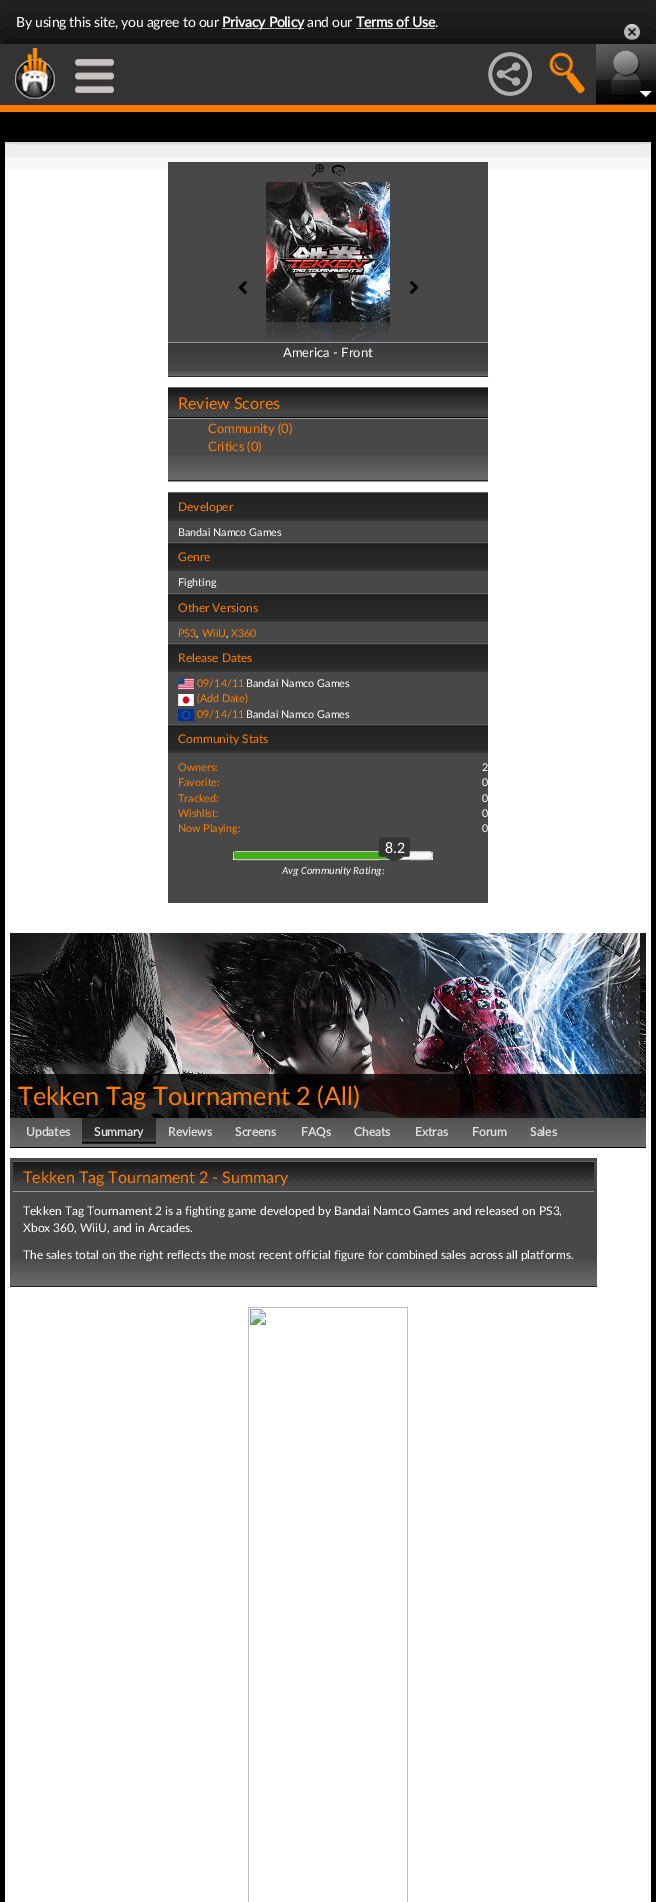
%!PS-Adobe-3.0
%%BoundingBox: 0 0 656 1902
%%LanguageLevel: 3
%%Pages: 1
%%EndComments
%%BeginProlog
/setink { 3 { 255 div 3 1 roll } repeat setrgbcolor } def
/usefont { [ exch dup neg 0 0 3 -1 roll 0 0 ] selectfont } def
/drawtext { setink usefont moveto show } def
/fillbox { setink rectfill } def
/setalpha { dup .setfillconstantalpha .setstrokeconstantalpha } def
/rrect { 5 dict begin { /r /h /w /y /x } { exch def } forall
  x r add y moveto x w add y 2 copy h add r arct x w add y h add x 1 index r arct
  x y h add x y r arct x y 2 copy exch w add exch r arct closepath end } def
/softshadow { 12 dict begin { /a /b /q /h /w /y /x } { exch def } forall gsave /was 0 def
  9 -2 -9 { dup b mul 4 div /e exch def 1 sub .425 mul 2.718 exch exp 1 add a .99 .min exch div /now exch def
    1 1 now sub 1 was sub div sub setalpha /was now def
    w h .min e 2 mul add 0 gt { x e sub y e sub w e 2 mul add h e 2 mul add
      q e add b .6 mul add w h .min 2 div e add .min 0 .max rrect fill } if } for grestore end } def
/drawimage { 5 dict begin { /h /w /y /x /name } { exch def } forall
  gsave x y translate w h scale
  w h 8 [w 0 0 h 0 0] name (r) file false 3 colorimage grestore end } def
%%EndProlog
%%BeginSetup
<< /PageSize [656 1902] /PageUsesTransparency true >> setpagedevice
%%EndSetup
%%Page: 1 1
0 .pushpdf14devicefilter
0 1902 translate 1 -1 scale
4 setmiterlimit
0 0 656 1902 0 0 0 fillbox
0 0 656 44 34 34 34 fillbox
222 28 82 1 255 255 255 fillbox
356 28 79 1 255 255 255 fillbox
(assets/img7.rgb) 624 24 16 16 drawimage
5 142 646 1760 255 255 255 fillbox
168 162 320 180 72 72 72 fillbox
(assets/img11.rgb) 311 164 13 13 drawimage
(assets/img12.rgb) 332 165 13 11 drawimage
(assets/img13.rgb) 266 182 124 140 drawimage
0 0 0 setink
0 45 656 68 0 25 1 softshadow
0 44 656 61 51 51 51 fillbox
(assets/img1.rgb) 15 48 40 51 drawimage
(assets/img2.rgb) 75 59 39 34 drawimage
(assets/img3.rgb) 488 52 44 44 drawimage
(assets/img4.rgb) 549 52 38 48 drawimage
(assets/img5.rgb) 596 44 60 60 drawimage
(assets/img6.rgb) 596 80 60 18 drawimage
0 105 656 7 249 123 0 fillbox
/Lato-Regular 14 usefont
255 255 255 setink
16 27 moveto -0.25 0 (By using this site, you agree to our) ashow
/Lato-Bold 14 usefont
222 27 moveto -0.25 0 (Privacy Policy) ashow
/Lato-Regular 14 usefont
307 27 moveto -0.25 0 (and our) ashow
/Lato-Bold 14 usefont
356 27 moveto -0.25 0 (Terms of Use) ashow
/Lato-Regular 14 usefont
435 27 moveto -0.25 0 (.) ashow
(assets/img8.rgb) 168 342 320 35 drawimage
(assets/img9.rgb) 238 281 10 13 drawimage
(assets/img10.rgb) 409 281 10 13 drawimage
(assets/img14.rgb) 266 322 124 20 drawimage
(America - Front) 283 357 /Lato-Regular 13 255 255 255 drawtext
168 419 320 36 72 72 72 fillbox
(assets/img15.rgb) 168 455 320 11 drawimage
(assets/img16.rgb) 168 387 320 31 drawimage
168 418 320 1 153 153 153 fillbox
(Review Scores) 178 409 /Lato-Regular 16 250 125 1 drawtext
(Community \(0\)) 208 433 /Lato-Regular 13 250 125 1 drawtext
(Critics \(0\)) 208 451 /Lato-Regular 13 250 125 1 drawtext
(assets/img17.rgb) 168 466 320 15 drawimage
168 481 320 1 153 153 153 fillbox
168 521 320 382 72 72 72 fillbox
(assets/img18.rgb) 168 492 320 29 drawimage
(Developer) 178 511 /Lato-Regular 12 250 125 1 drawtext
(Bandai Namco Games) 178 536 /Lato-Regular 10.75 255 255 255 drawtext
(assets/img18.rgb) 168 542 320 29 drawimage
(Genre) 178 561 /Lato-Regular 12 250 125 1 drawtext
(Fighting) 178 586 /Lato-Regular 10.75 255 255 255 drawtext
(assets/img18.rgb) 168 593 320 29 drawimage
(Other Versions) 178 612 /Lato-Regular 12 250 125 1 drawtext
(PS3) 178 637 /Lato-Regular 10.75 250 125 1 drawtext
(,) 196 637 /Lato-Regular 10.75 255 255 255 drawtext
(WiiU) 202 637 /Lato-Regular 10.75 250 125 1 drawtext
(,) 226 637 /Lato-Regular 10.75 255 255 255 drawtext
(X360) 231 637 /Lato-Regular 10.75 250 125 1 drawtext
(assets/img18.rgb) 168 643 320 29 drawimage
(Release Dates) 178 662 /Lato-Regular 12 250 125 1 drawtext
(assets/img19.rgb) 178 678 16 12 drawimage
(09/14/11) 197 687 /Lato-Regular 10.75 250 125 1 drawtext
(Bandai Namco Games) 246 687 /Lato-Regular 10.75 255 255 255 drawtext
(assets/img20.rgb) 178 694 16 12 drawimage
(\(Add Date\)) 197 702 /Lato-Regular 10.75 250 125 1 drawtext
(assets/img21.rgb) 178 709 16 12 drawimage
(09/14/11) 197 718 /Lato-Regular 10.75 250 125 1 drawtext
(Bandai Namco Games) 246 718 /Lato-Regular 10.75 255 255 255 drawtext
(assets/img18.rgb) 168 724 320 29 drawimage
(Community Stats) 178 743 /Lato-Regular 12 250 125 1 drawtext
(Owners:) 178 771 /Lato-Regular 10.75 250 125 1 drawtext
(2) 482 771 /Lato-Regular 10.75 255 255 255 drawtext
(Favorite:) 178 786 /Lato-Regular 10.75 250 125 1 drawtext
(0) 482 786 /Lato-Regular 10.75 255 255 255 drawtext
(Tracked:) 178 802 /Lato-Regular 10.75 250 125 1 drawtext
(0) 482 802 /Lato-Regular 10.75 255 255 255 drawtext
(Wishlist:) 178 817 /Lato-Regular 10.75 250 125 1 drawtext
(0) 482 817 /Lato-Regular 10.75 255 255 255 drawtext
(Now Playing:) 178 832 /Lato-Regular 10.75 250 125 1 drawtext
(0) 482 832 /Lato-Regular 10.75 255 255 255 drawtext
233 852 200 8 248 248 248 fillbox
197 197 197 setink
233.5 851.5 199 8 3.5 rrect stroke
234 852 155 7 69 174 24 fillbox
(assets/img22.rgb) 378 837 32 24 drawimage
(8.2) 385 853 /Carlito-Regular 16 255 255 255 drawtext
(Avg Community Rating:) 282 874 /Carlito-Italic 10.75 255 255 255 drawtext
(assets/img23.rgb) 10 1118 636 30 drawimage
(assets/img24.rgb) 10 933 636 185 drawimage
0.8 setalpha
10 1074 636 44 0 0 0 fillbox
1 setalpha
(Tekken Tag Tournament 2 \(All\)) 18 1105 /Lato-Regular 25.3 250 125 1 drawtext
(Updates) 26 1136 /Lato-Bold 12 221 221 221 drawtext
(assets/img25.rgb) 82 1118 74 26 drawimage
(Summary) 94 1136 /Lato-Bold 12 221 221 221 drawtext
(Reviews) 168 1136 /Lato-Bold 12 221 221 221 drawtext
(Screens) 235 1136 /Lato-Bold 12 221 221 221 drawtext
(FAQs) 301 1136 /Lato-Bold 12 221 221 221 drawtext
(Cheats) 354 1136 /Lato-Bold 12 221 221 221 drawtext
(Extras) 415 1136 /Lato-Bold 12 221 221 221 drawtext
(Forum) 472 1136 /Lato-Bold 12 221 221 221 drawtext
(Sales) 530 1136 /Lato-Bold 12 221 221 221 drawtext
10 1158 587 102 72 72 72 fillbox
(assets/img26.rgb) 10 1260 587 27 drawimage
(assets/img27.rgb) 13 1161 581 30 drawimage
13 1191 581 1 153 153 153 fillbox
(Tekken Tag Tournament 2 - Summary) 23 1183 /Lato-Regular 16 250 125 1 drawtext
(Tekken Tag Tournament 2 is a fighting game developed by Bandai Namco Games and released on PS3,) 23 1215 /Lato-Regular 12 255 255 255 drawtext
(Xbox 360, WiiU, and in Arcades.) 23 1232 /Lato-Regular 12 255 255 255 drawtext
(The sales total on the right reflects the most recent official figure for combined sales across all platforms.) 23 1259 /Lato-Regular 12 255 255 255 drawtext
(assets/img28.rgb) 248 1307 160 595 drawimage
.poppdf14devicefilter showpage
%%EOF
